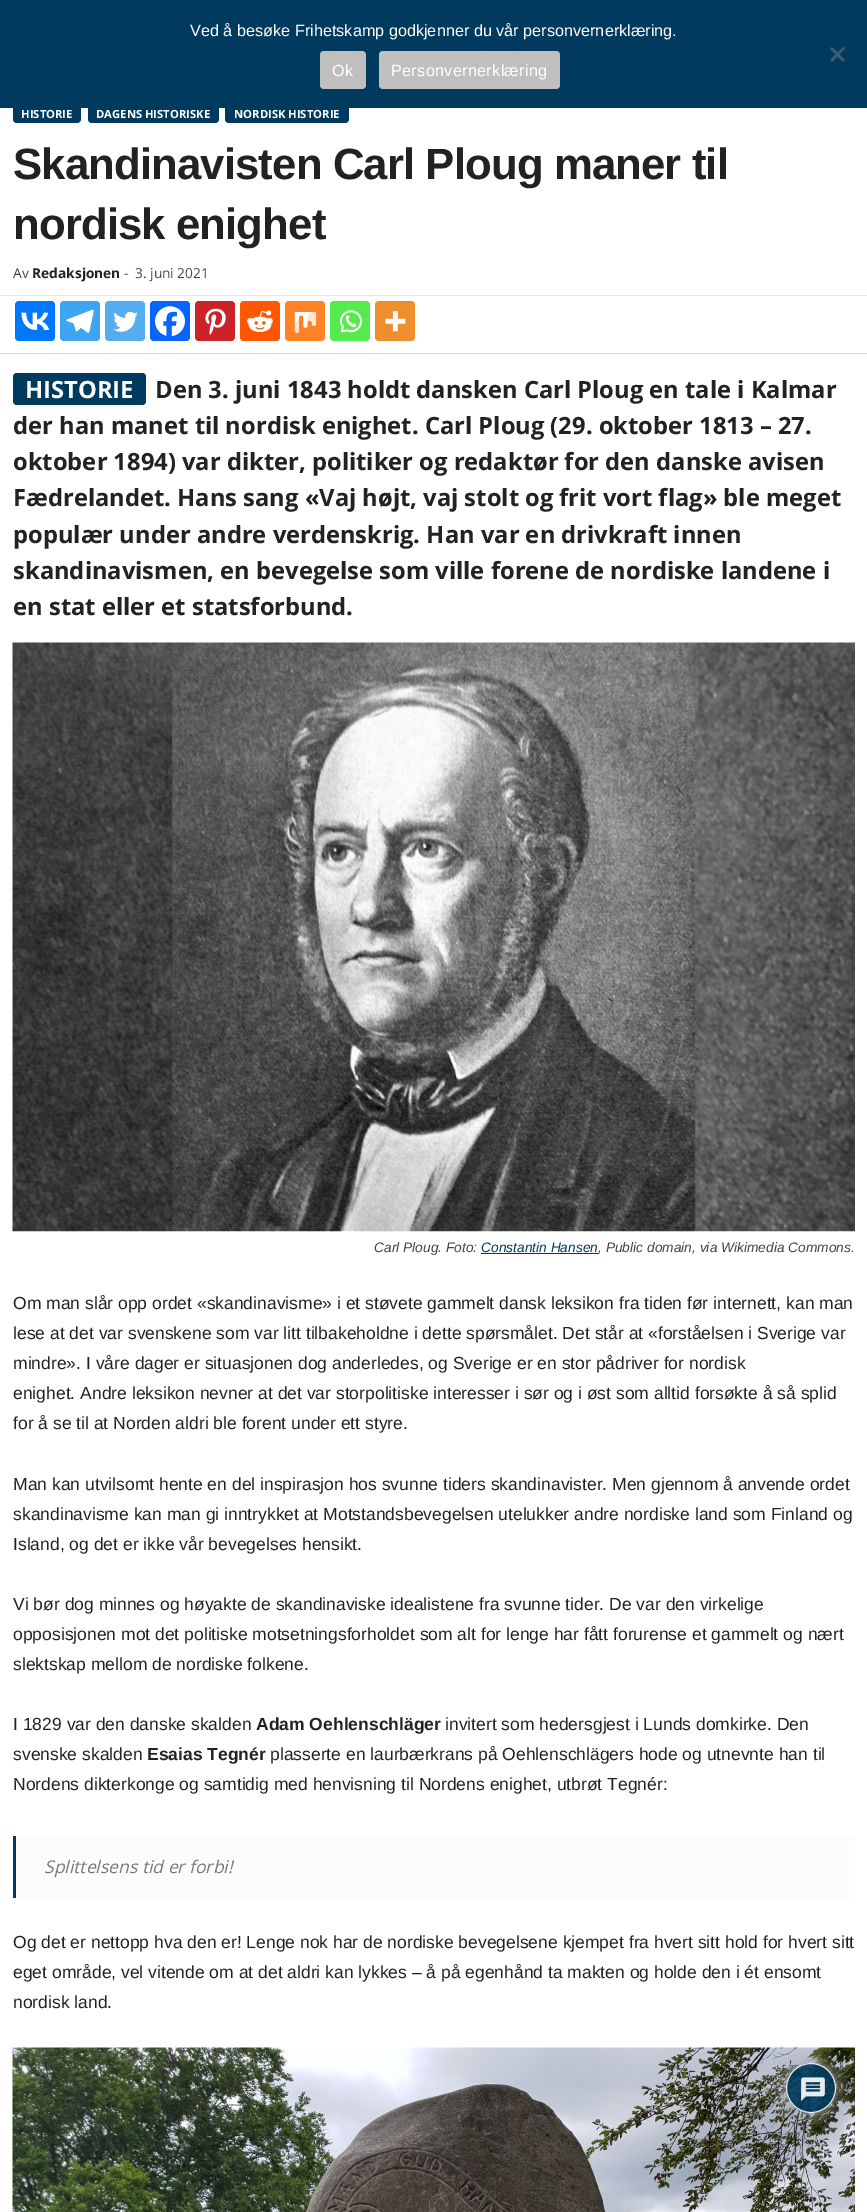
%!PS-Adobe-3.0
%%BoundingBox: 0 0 867 2212
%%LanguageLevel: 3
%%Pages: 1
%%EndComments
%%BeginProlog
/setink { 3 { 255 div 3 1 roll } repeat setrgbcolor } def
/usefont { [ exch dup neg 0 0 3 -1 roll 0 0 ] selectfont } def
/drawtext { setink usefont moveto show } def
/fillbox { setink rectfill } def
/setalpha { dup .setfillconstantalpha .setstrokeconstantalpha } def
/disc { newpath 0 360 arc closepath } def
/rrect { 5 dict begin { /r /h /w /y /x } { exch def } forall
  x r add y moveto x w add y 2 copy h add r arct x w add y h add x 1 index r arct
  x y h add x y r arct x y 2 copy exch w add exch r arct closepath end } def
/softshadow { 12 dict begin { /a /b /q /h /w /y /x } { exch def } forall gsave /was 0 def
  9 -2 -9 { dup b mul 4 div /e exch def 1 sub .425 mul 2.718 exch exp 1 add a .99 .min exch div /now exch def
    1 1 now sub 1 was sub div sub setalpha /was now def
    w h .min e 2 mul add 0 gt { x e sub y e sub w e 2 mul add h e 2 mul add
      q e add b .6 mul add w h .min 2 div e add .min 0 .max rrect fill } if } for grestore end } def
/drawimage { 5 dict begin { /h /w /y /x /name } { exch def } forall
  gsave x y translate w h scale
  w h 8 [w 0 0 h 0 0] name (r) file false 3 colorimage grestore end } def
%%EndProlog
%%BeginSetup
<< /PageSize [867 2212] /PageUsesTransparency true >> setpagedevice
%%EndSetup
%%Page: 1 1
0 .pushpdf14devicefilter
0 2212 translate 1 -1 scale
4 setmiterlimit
0 0 867 2212 255 255 255 fillbox
0 58 94 setink
13 104 68 19 4 rrect fill
88 104 131 19 4 rrect fill
225 104 124 19 4 rrect fill
0 0 867 108 0 58 94 fillbox
(Ved å besøke Frihetskamp godkjenner du vår personvernerklæring.) 190 36 /LiberationSans-Regular 16.25 255 255 255 drawtext
64 93 111 setink
843 47 moveto 845 48.5 lineto 832 62 lineto 830 60 lineto closepath fill
830 48.5 moveto 832 47 lineto 845 60 lineto 843 62 lineto closepath fill
191 191 191 setink
320 51 46 38 4 rrect fill
255 255 255 setink
332 76 moveto 0.3 0 (Ok) ashow
191 191 191 setink
379 51 181 38 4 rrect fill
255 255 255 setink
391 76 moveto 0.3 0 (Personvernerklæring) ashow
(HISTORIE) 21 118 /OpenSans-Bold 11.25 255 255 255 drawtext
(DAGENS HISTORISKE) 96 118 /OpenSans-Bold 11.25 255 255 255 drawtext
(NORDISK HISTORIE) 234 118 /OpenSans-Bold 11.25 255 255 255 drawtext
/LiberationSans-Bold 43.75 usefont
34 34 34 setink
13 179 moveto -0.9 0 (Skandinavisten Carl Ploug maner til) ashow
13 239 moveto -0.9 0 (nordisk enighet) ashow
(Av) 13 278 /OpenSans-Regular 13.75 68 68 68 drawtext
(Redaksjonen) 32 278 /OpenSans-Bold 13.75 34 34 34 drawtext
(-) 124 278 /OpenSans-Regular 13.75 68 68 68 drawtext
(3. juni 2021) 135 278 /OpenSans-Regular 13.75 68 68 68 drawtext
0 295 867 1 230 230 230 fillbox
0 119 255 setink
15 301 40 40 4 rrect fill
(assets/img1.rgb) 21 312 29 18 drawimage
61 165 241 setink
60 301 40 40 4 rrect fill
(assets/img2.rgb) 66 309 28 24 drawimage
85 172 238 setink
105 301 40 40 4 rrect fill
(assets/img3.rgb) 113 311 25 21 drawimage
7 101 254 setink
150 301 40 40 4 rrect fill
(assets/img4.rgb) 155 306 30 31 drawimage
204 35 41 setink
195 301 40 40 4 rrect fill
(assets/img5.rgb) 205 308 21 27 drawimage
255 87 0 setink
240 301 40 40 4 rrect fill
(assets/img6.rgb) 247 310 26 22 drawimage
255 130 38 setink
285 301 40 40 4 rrect fill
(assets/img7.rgb) 294 312 23 22 drawimage
85 235 76 setink
330 301 40 40 4 rrect fill
(assets/img8.rgb) 340 310 22 23 drawimage
238 142 45 setink
375 301 40 40 4 rrect fill
(assets/img9.rgb) 385 311 21 21 drawimage
0 353 867 1 216 216 216 fillbox
0 58 94 setink
13 373 133 32 4 rrect fill
(HISTORIE) 25 398 /OpenSans-Bold 23.75 255 255 255 drawtext
(Den 3. juni 1843 holdt dansken Carl Ploug en tale i Kalmar) 155 398 /OpenSans-Bold 23.75 34 34 34 drawtext
(der han manet til nordisk enighet. Carl Ploug \(29. oktober 1813 – 27.) 13 434 /OpenSans-Bold 23.75 34 34 34 drawtext
(oktober 1894\) var dikter, politiker og redaktør for den danske avisen) 13 470 /OpenSans-Bold 23.75 34 34 34 drawtext
(Fædrelandet. Hans sang «Vaj højt, vaj stolt og frit vort flag» ble meget) 13 506 /OpenSans-Bold 23.75 34 34 34 drawtext
(populær under andre verdenskrig. Han var en drivkraft innen) 13 543 /OpenSans-Bold 23.75 34 34 34 drawtext
(skandinavismen, en bevegelse som ville forene de nordiske landene i) 13 579 /OpenSans-Bold 23.75 34 34 34 drawtext
(en stat eller et statsforbund.) 13 615 /OpenSans-Bold 23.75 34 34 34 drawtext
(assets/img10.rgb) 12 642 843 590 drawimage
(Carl Ploug. Foto:) 374 1252 /LiberationSans-Italic 13.75 68 68 68 drawtext
(Constantin Hansen) 481 1252 /LiberationSans-Italic 13.75 0 58 94 drawtext
481 1253 118 1 0 58 94 fillbox
(, Public domain, via Wikimedia Commons.) 598 1252 /LiberationSans-Italic 13.75 68 68 68 drawtext
(Om man slår opp ordet «skandinavisme» i et støvete gammelt dansk leksikon fra tiden før internett, kan man) 13 1309 /LiberationSans-Regular 17.5 34 34 34 drawtext
(lese at det var svenskene som var litt tilbakeholdne i dette spørsmålet. Det står at «forståelsen i Sverige var) 13 1339 /LiberationSans-Regular 17.5 34 34 34 drawtext
(mindre». I våre dager er situasjonen dog anderledes, og Sverige er en stor pådriver for nordisk) 13 1369 /LiberationSans-Regular 17.5 34 34 34 drawtext
(enighet. Andre leksikon nevner at det var storpolitiske interesser i sør og i øst som alltid forsøkte å så splid) 13 1399 /LiberationSans-Regular 17.5 34 34 34 drawtext
(for å se til at Norden aldri ble forent under ett styre.) 13 1429 /LiberationSans-Regular 17.5 34 34 34 drawtext
(Man kan utvilsomt hente en del inspirasjon hos svunne tiders skandinavister. Men gjennom å anvende ordet) 13 1490 /LiberationSans-Regular 17.5 34 34 34 drawtext
(skandinavisme kan man gi inntrykket at Motstandsbevegelsen utelukker andre nordiske land som Finland og) 13 1520 /LiberationSans-Regular 17.5 34 34 34 drawtext
(Island, og det er ikke vår bevegelses hensikt.) 13 1550 /LiberationSans-Regular 17.5 34 34 34 drawtext
(Vi bør dog minnes og høyakte de skandinaviske idealistene fra svunne tider. De var den virkelige) 13 1610 /LiberationSans-Regular 17.5 34 34 34 drawtext
(opposisjonen mot det politiske motsetningsforholdet som alt for lenge har fått forurense et gammelt og nært) 13 1640 /LiberationSans-Regular 17.5 34 34 34 drawtext
(slektskap mellom de nordiske folkene.) 13 1670 /LiberationSans-Regular 17.5 34 34 34 drawtext
(I 1829 var den danske skalden) 13 1730 /LiberationSans-Regular 17.5 34 34 34 drawtext
(Adam Oehlenschläger) 256 1730 /LiberationSans-Bold 17.5 34 34 34 drawtext
(invitert som hedersgjest i Lunds domkirke. Den) 445 1730 /LiberationSans-Regular 17.5 34 34 34 drawtext
(svenske skalden) 13 1760 /LiberationSans-Regular 17.5 34 34 34 drawtext
(Esaias Tegnér) 147 1760 /LiberationSans-Bold 17.5 34 34 34 drawtext
(plasserte en laurbærkrans på Oehlenschlägers hode og utnevnte han til) 270 1760 /LiberationSans-Regular 17.5 34 34 34 drawtext
(Nordens dikterkonge og samtidig med henvisning til Nordens enighet, utbrøt Tegnér:) 13 1790 /LiberationSans-Regular 17.5 34 34 34 drawtext
16 1836 839 62 252 252 252 fillbox
13 1836 3 62 0 58 94 fillbox
(Splittelsens tid er forbi!) 44 1873 /OpenSans-Italic 17.5 119 119 119 drawtext
(Og det er nettopp hva den er! Lenge nok har de nordiske bevegelsene kjempet fra hvert sitt hold for hvert sitt) 13 1948 /LiberationSans-Regular 17.5 34 34 34 drawtext
(eget område, vel vitende om at det aldri kan lykkes – å på egenhånd ta makten og holde den i ét ensomt) 13 1978 /LiberationSans-Regular 17.5 34 34 34 drawtext
(nordisk land.) 13 2008 /LiberationSans-Regular 17.5 34 34 34 drawtext
(assets/img11.rgb) 12 2047 843 165 drawimage
gsave
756 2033 moveto 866 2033 lineto 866 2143 lineto 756 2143 lineto closepath 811 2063 moveto 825 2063 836 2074 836 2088 curveto 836 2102 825 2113 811 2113 curveto 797 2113 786 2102 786 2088 curveto 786 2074 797 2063 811 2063 curveto closepath eoclip newpath
170 170 170 setink
786 2063 50 50 25 9.5 0.9 softshadow
grestore
0.9 setalpha
0 58 94 setink
811 2088 25 disc fill
255 255 255 setink
811 2088 24.5 disc stroke
1 setalpha
(assets/img12.rgb) 801 2077 24 24 drawimage
.poppdf14devicefilter showpage
%%EOF
